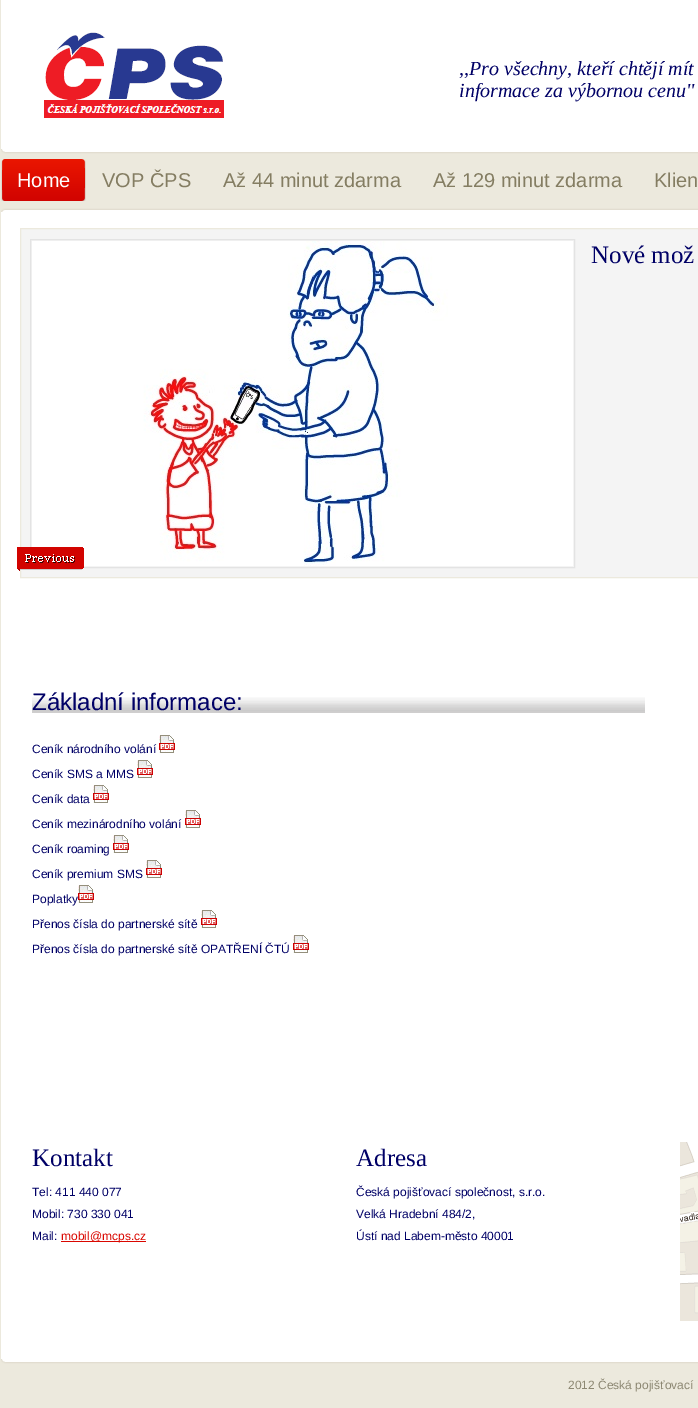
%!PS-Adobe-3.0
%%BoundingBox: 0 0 698 1408
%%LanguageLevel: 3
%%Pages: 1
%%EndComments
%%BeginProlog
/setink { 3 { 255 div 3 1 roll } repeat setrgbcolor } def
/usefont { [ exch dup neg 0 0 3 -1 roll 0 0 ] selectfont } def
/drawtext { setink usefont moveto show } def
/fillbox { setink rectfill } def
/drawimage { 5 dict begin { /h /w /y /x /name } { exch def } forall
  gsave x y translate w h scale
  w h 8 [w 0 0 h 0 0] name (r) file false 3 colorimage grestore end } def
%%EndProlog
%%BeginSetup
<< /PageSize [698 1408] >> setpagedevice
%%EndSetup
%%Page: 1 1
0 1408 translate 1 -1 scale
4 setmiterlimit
0 0 698 1408 236 233 221 fillbox
1 0 697 149 255 255 255 fillbox
(assets/img1.rgb) 1 149 697 5 drawimage
(assets/img2.rgb) 44 32 180 86 drawimage
(,,Pro všechny, kteří chtějí mít) 459 75 /LiberationSerif-Italic 20 0 0 102 drawtext
(informace za výbornou cenu'') 459 97 /LiberationSerif-Italic 20 0 0 102 drawtext
(assets/img3.rgb) 1 159 80 42 drawimage
(assets/img4.rgb) 81 159 5 42 drawimage
(Home) 17 187 /LiberationSans-Regular 20 255 255 255 drawtext
(VOP ČPS) 102 187 /LiberationSans-Regular 20 132 125 98 drawtext
(Až 44 minut zdarma) 223 187 /LiberationSans-Regular 20 132 125 98 drawtext
(Až 129 minut zdarma) 433 187 /LiberationSans-Regular 20 132 125 98 drawtext
(Klien) 654 187 /LiberationSans-Regular 20 132 125 98 drawtext
1 212 697 1147 255 255 255 fillbox
(assets/img5.rgb) 1 208 697 4 drawimage
(assets/img1.rgb) 1 1359 697 5 drawimage
244 244 244 setink
20.5 228.5 moveto 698.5 228.5 lineto 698.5 577.5 lineto 20.5 577.5 lineto closepath gsave fill grestore
236 233 221 setink
stroke
227 227 227 setink
30.5 239.5 544 328 rectstroke
(assets/img6.rgb) 32 241 541 325 drawimage
(Nové mož) 591 263 /LiberationSerif-Regular 25 0 0 102 drawtext
(assets/img7.rgb) 17 547 67 24 drawimage
(assets/img8.rgb) 32 697 613 16 drawimage
(Základní informace:) 32 710 /LiberationSans-Regular 24 0 0 102 drawtext
(Ceník národního volání) 32 753 /LiberationSans-Regular 12 0 0 102 drawtext
(assets/img9.rgb) 159 735 16 18 drawimage
(Ceník SMS a MMS) 32 778 /LiberationSans-Regular 12 0 0 102 drawtext
(assets/img9.rgb) 137 760 16 18 drawimage
(Ceník data) 32 803 /LiberationSans-Regular 12 0 0 102 drawtext
(assets/img9.rgb) 93 785 16 18 drawimage
(Ceník mezinárodního volání) 32 828 /LiberationSans-Regular 12 0 0 102 drawtext
(assets/img9.rgb) 185 810 16 18 drawimage
(Ceník roaming) 32 853 /LiberationSans-Regular 12 0 0 102 drawtext
(assets/img9.rgb) 113 835 16 18 drawimage
(Ceník premium SMS) 32 878 /LiberationSans-Regular 12 0 0 102 drawtext
(assets/img9.rgb) 146 860 16 18 drawimage
(Poplatky) 32 903 /LiberationSans-Regular 12 0 0 102 drawtext
(assets/img9.rgb) 78 885 16 18 drawimage
(Přenos čísla do partnerské sítě) 32 928 /LiberationSans-Regular 12 0 0 102 drawtext
(assets/img9.rgb) 201 910 16 18 drawimage
(Přenos čísla do partnerské sítě OPATŘENÍ ČTÚ) 32 953 /LiberationSans-Regular 12 0 0 102 drawtext
(assets/img9.rgb) 293 935 16 18 drawimage
(Kontakt) 32 1166 /LiberationSerif-Regular 25 0 0 102 drawtext
(Tel: 411 440 077) 32 1196 /LiberationSans-Regular 12 0 0 102 drawtext
(Mobil: 730 330 041) 32 1218 /LiberationSans-Regular 12 0 0 102 drawtext
(Mail:) 32 1240 /LiberationSans-Regular 12 0 0 102 drawtext
61 1241 85 1 218 7 0 fillbox
(mobil@mcps.cz) 61 1240 /LiberationSans-Regular 12 218 7 0 drawtext
(Adresa) 356 1166 /LiberationSerif-Regular 25 0 0 102 drawtext
(Česká pojišťovací společnost, s.r.o.) 356 1196 /LiberationSans-Regular 12 0 0 102 drawtext
(Velká Hradební 484/2,) 356 1218 /LiberationSans-Regular 12 0 0 102 drawtext
(Ústí nad Labem-město 40001) 356 1240 /LiberationSans-Regular 12 0 0 102 drawtext
(assets/img10.rgb) 680 1142 18 179 drawimage
(2012 Česká pojišťovací) 568 1389 /LiberationSans-Regular 12 140 135 114 drawtext
showpage
%%EOF
